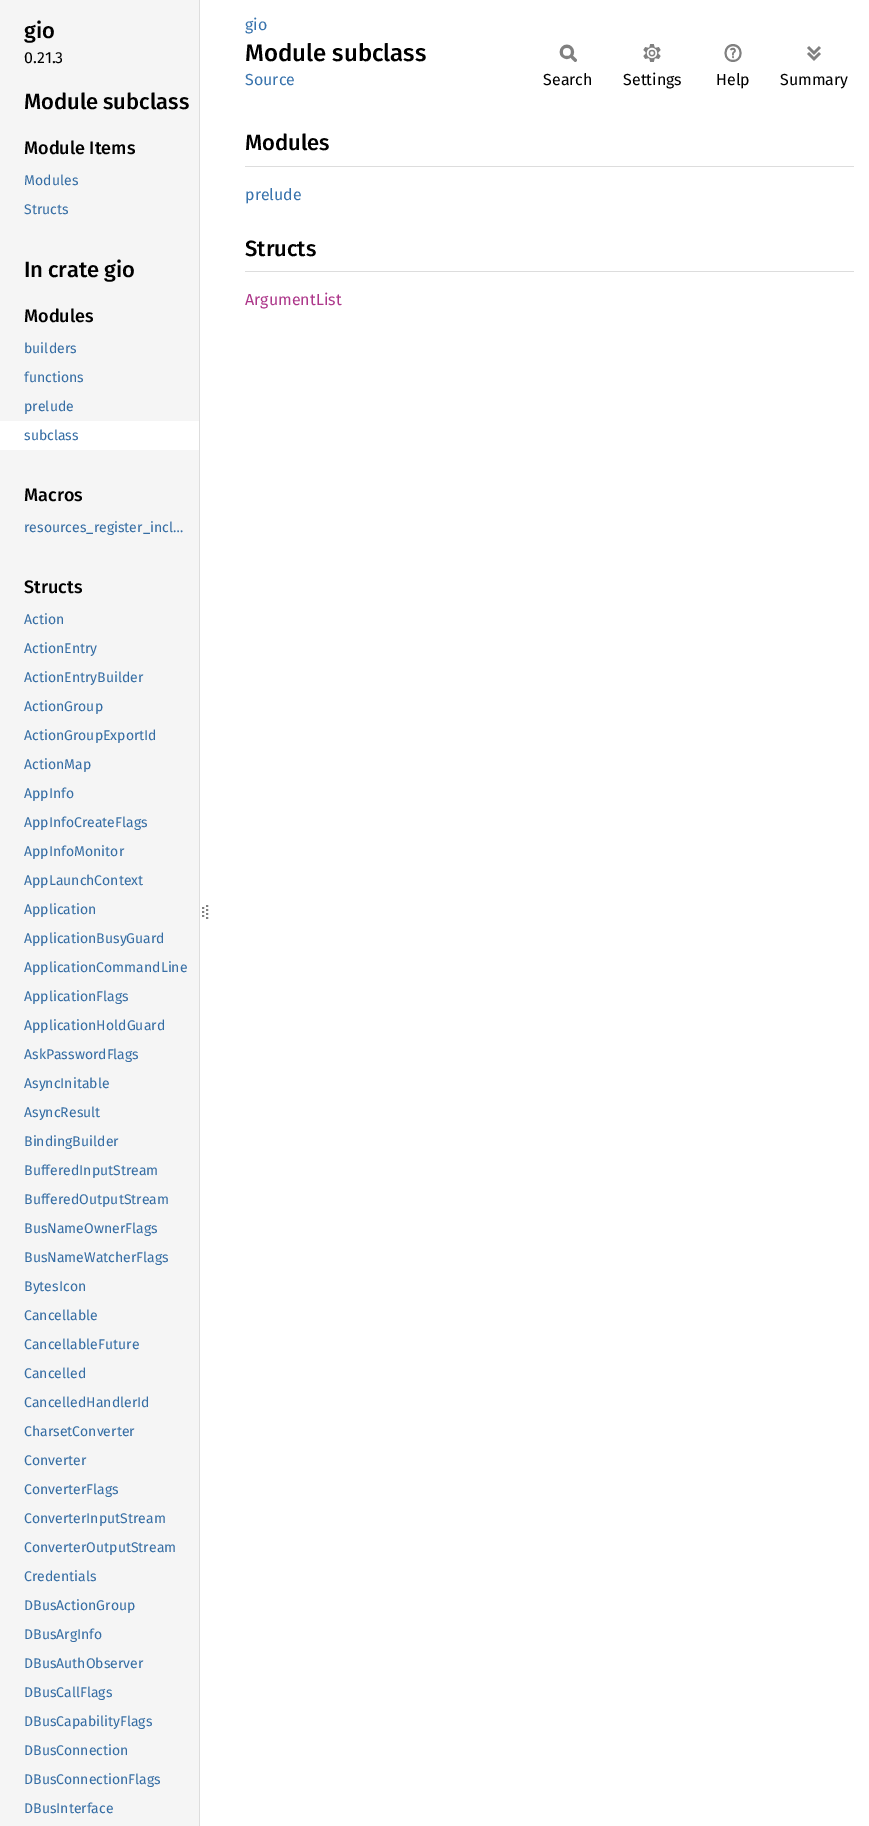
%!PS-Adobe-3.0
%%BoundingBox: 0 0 869 1826
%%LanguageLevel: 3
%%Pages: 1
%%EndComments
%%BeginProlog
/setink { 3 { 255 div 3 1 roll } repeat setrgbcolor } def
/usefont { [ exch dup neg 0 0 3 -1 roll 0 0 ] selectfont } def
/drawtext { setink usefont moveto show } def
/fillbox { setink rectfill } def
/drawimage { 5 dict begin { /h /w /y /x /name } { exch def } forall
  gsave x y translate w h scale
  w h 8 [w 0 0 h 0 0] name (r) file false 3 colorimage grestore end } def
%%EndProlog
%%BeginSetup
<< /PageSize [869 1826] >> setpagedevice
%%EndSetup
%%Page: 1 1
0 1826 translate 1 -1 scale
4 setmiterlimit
0 0 869 1826 255 255 255 fillbox
0 0 199 1826 245 245 245 fillbox
199 0 1 1826 221 221 221 fillbox
(gio) 24 38 /FiraSans-Medium 22 0 0 0 drawtext
(0.21.3) 24 63 /FiraSans-Regular 16 0 0 0 drawtext
/FiraSans-Medium 22 usefont
24 109 moveto -1 0 32 (Module subclass) widthshow
(Module Items) 24 154 /FiraSans-Medium 18 0 0 0 drawtext
(Modules) 24 185 /FiraSans-Regular 14 53 109 164 drawtext
(Structs) 24 214 /FiraSans-Regular 14 53 109 164 drawtext
/FiraSans-Medium 22 usefont
0 0 0 setink
24 277 moveto -1 0 32 (In crate gio) widthshow
(Modules) 24 322 /FiraSans-Medium 18 0 0 0 drawtext
(builders) 24 353 /FiraSans-Regular 14 53 109 164 drawtext
(functions) 24 382 /FiraSans-Regular 14 53 109 164 drawtext
(prelude) 24 411 /FiraSans-Regular 14 53 109 164 drawtext
0 421 199 29 255 255 255 fillbox
(subclass) 24 440 /FiraSans-Regular 14 53 109 164 drawtext
(Macros) 24 501 /FiraSans-Medium 18 0 0 0 drawtext
(resources_register_incl…) 24 532 /FiraSans-Regular 14 53 109 164 drawtext
(Structs) 24 593 /FiraSans-Medium 18 0 0 0 drawtext
(Action) 24 624 /FiraSans-Regular 14 53 109 164 drawtext
(ActionEntry) 24 653 /FiraSans-Regular 14 53 109 164 drawtext
(ActionEntryBuilder) 24 682 /FiraSans-Regular 14 53 109 164 drawtext
(ActionGroup) 24 711 /FiraSans-Regular 14 53 109 164 drawtext
(ActionGroupExportId) 24 740 /FiraSans-Regular 14 53 109 164 drawtext
(ActionMap) 24 769 /FiraSans-Regular 14 53 109 164 drawtext
(AppInfo) 24 798 /FiraSans-Regular 14 53 109 164 drawtext
(AppInfoCreateFlags) 24 827 /FiraSans-Regular 14 53 109 164 drawtext
(AppInfoMonitor) 24 856 /FiraSans-Regular 14 53 109 164 drawtext
(AppLaunchContext) 24 885 /FiraSans-Regular 14 53 109 164 drawtext
(Application) 24 914 /FiraSans-Regular 14 53 109 164 drawtext
(ApplicationBusyGuard) 24 943 /FiraSans-Regular 14 53 109 164 drawtext
(ApplicationCommandLine) 24 972 /FiraSans-Regular 14 53 109 164 drawtext
(ApplicationFlags) 24 1001 /FiraSans-Regular 14 53 109 164 drawtext
(ApplicationHoldGuard) 24 1030 /FiraSans-Regular 14 53 109 164 drawtext
(AskPasswordFlags) 24 1059 /FiraSans-Regular 14 53 109 164 drawtext
(AsyncInitable) 24 1088 /FiraSans-Regular 14 53 109 164 drawtext
(AsyncResult) 24 1117 /FiraSans-Regular 14 53 109 164 drawtext
(BindingBuilder) 24 1146 /FiraSans-Regular 14 53 109 164 drawtext
(BufferedInputStream) 24 1175 /FiraSans-Regular 14 53 109 164 drawtext
(BufferedOutputStream) 24 1204 /FiraSans-Regular 14 53 109 164 drawtext
(BusNameOwnerFlags) 24 1233 /FiraSans-Regular 14 53 109 164 drawtext
(BusNameWatcherFlags) 24 1262 /FiraSans-Regular 14 53 109 164 drawtext
(BytesIcon) 24 1291 /FiraSans-Regular 14 53 109 164 drawtext
(Cancellable) 24 1320 /FiraSans-Regular 14 53 109 164 drawtext
(CancellableFuture) 24 1349 /FiraSans-Regular 14 53 109 164 drawtext
(Cancelled) 24 1378 /FiraSans-Regular 14 53 109 164 drawtext
(CancelledHandlerId) 24 1407 /FiraSans-Regular 14 53 109 164 drawtext
(CharsetConverter) 24 1436 /FiraSans-Regular 14 53 109 164 drawtext
(Converter) 24 1465 /FiraSans-Regular 14 53 109 164 drawtext
(ConverterFlags) 24 1494 /FiraSans-Regular 14 53 109 164 drawtext
(ConverterInputStream) 24 1523 /FiraSans-Regular 14 53 109 164 drawtext
(ConverterOutputStream) 24 1552 /FiraSans-Regular 14 53 109 164 drawtext
(Credentials) 24 1581 /FiraSans-Regular 14 53 109 164 drawtext
(DBusActionGroup) 24 1610 /FiraSans-Regular 14 53 109 164 drawtext
(DBusArgInfo) 24 1639 /FiraSans-Regular 14 53 109 164 drawtext
(DBusAuthObserver) 24 1668 /FiraSans-Regular 14 53 109 164 drawtext
(DBusCallFlags) 24 1697 /FiraSans-Regular 14 53 109 164 drawtext
(DBusCapabilityFlags) 24 1726 /FiraSans-Regular 14 53 109 164 drawtext
(DBusConnection) 24 1755 /FiraSans-Regular 14 53 109 164 drawtext
(DBusConnectionFlags) 24 1784 /FiraSans-Regular 14 53 109 164 drawtext
(DBusInterface) 24 1813 /FiraSans-Regular 14 53 109 164 drawtext
128 128 128 setink
2 setlinewidth
203 907 moveto 203 909 lineto 203 911 moveto 203 913 lineto 203 915 moveto 203 917 lineto stroke
[2 2] 0 setdash
207 905 moveto 207 921 lineto stroke
(gio) 245 30 /FiraSans-Regular 16 56 115 173 drawtext
(Module subclass) 245 61 /FiraSans-Medium 24 0 0 0 drawtext
(Source) 245 85 /FiraSans-Regular 16 56 115 173 drawtext
(assets/img1.rgb) 559 44 18 18 drawimage
(Search) 543 85 /FiraSans-Regular 16 0 0 0 drawtext
(assets/img2.rgb) 643 44 18 18 drawimage
(Settings) 623 85 /FiraSans-Regular 16 0 0 0 drawtext
(assets/img3.rgb) 724 44 18 18 drawimage
(Help) 716 85 /FiraSans-Regular 16 0 0 0 drawtext
(assets/img4.rgb) 807 46 14 15 drawimage
(Summary) 780 85 /FiraSans-Regular 16 0 0 0 drawtext
245 166 609 1 221 221 221 fillbox
(Modules) 245 150 /FiraSans-Medium 22 0 0 0 drawtext
(prelude) 245 200 /FiraSans-Regular 16 56 115 173 drawtext
245 271 609 1 221 221 221 fillbox
(Structs) 245 256 /FiraSans-Medium 22 0 0 0 drawtext
(ArgumentList) 245 305 /FiraSans-Regular 16 173 55 138 drawtext
showpage
%%EOF
